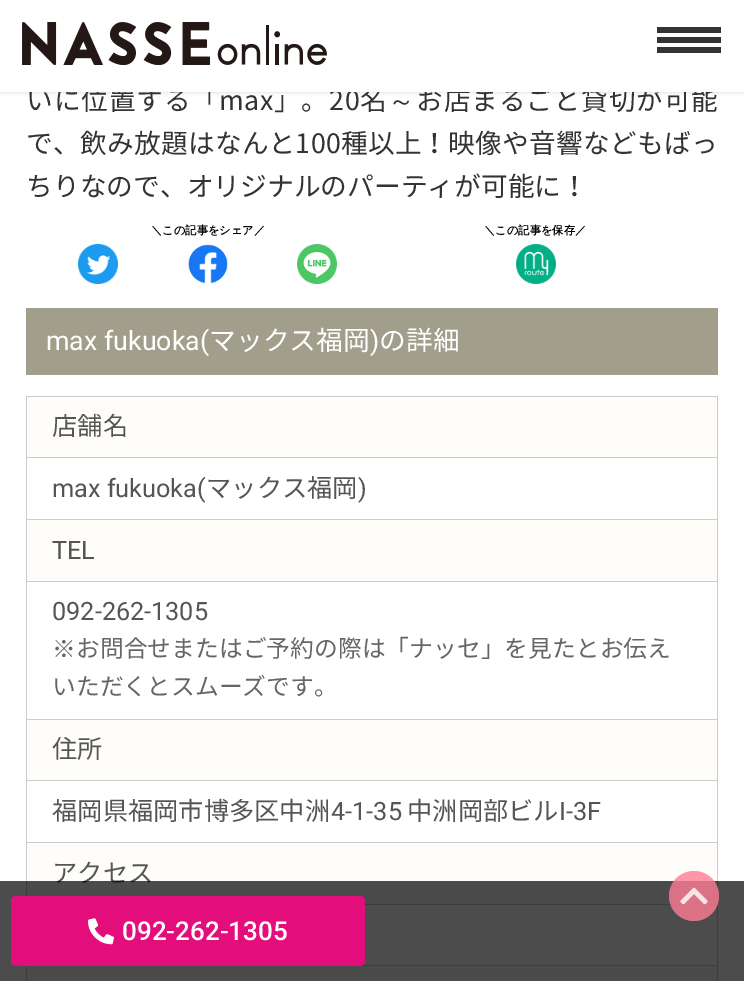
%!PS-Adobe-3.0
%%BoundingBox: 0 0 744 981
%%LanguageLevel: 3
%%Pages: 1
%%EndComments
%%BeginProlog
/setink { 3 { 255 div 3 1 roll } repeat setrgbcolor } def
/usefont { [ exch dup neg 0 0 3 -1 roll 0 0 ] selectfont } def
/drawtext { setink usefont moveto show } def
/fillbox { setink rectfill } def
/setalpha { dup .setfillconstantalpha .setstrokeconstantalpha } def
/disc { newpath 0 360 arc closepath } def
/rrect { 5 dict begin { /r /h /w /y /x } { exch def } forall
  x r add y moveto x w add y 2 copy h add r arct x w add y h add x 1 index r arct
  x y h add x y r arct x y 2 copy exch w add exch r arct closepath end } def
/softshadow { 12 dict begin { /a /b /q /h /w /y /x } { exch def } forall gsave /was 0 def
  9 -2 -9 { dup b mul 4 div /e exch def 1 sub .425 mul 2.718 exch exp 1 add a .99 .min exch div /now exch def
    1 1 now sub 1 was sub div sub setalpha /was now def
    w h .min e 2 mul add 0 gt { x e sub y e sub w e 2 mul add h e 2 mul add
      q e add b .6 mul add w h .min 2 div e add .min 0 .max rrect fill } if } for grestore end } def
/drawimage { 5 dict begin { /h /w /y /x /name } { exch def } forall
  gsave x y translate w h scale
  w h 8 [w 0 0 h 0 0] name (r) file false 3 colorimage grestore end } def
%%EndProlog
%%BeginSetup
<< /PageSize [744 981] /PageUsesTransparency true >> setpagedevice
%%EndSetup
%%Page: 1 1
0 .pushpdf14devicefilter
0 981 translate 1 -1 scale
4 setmiterlimit
0 0 744 981 255 255 255 fillbox
0 0 0 setink
0 1 744 92 0 2 0.1 softshadow
/NotoSansJP-Regular 26.75 usefont
51 51 51 setink
26 110 moveto 0.75 0 (いに位置する「max」。20名) ashow
416 110 moveto 0.75 0 (お店まるごと貸切が可能) ashow
0 0 744 91 255 255 255 fillbox
0 91 744 1 252 252 252 fillbox
(assets/img1.rgb) 22 22 305 43 drawimage
657 37 64 6 51 51 51 fillbox
657 27 64 6 51 51 51 fillbox
657 47 64 6 51 51 51 fillbox
/WenQuanYiZenHei-Medium 26.75 usefont
388 110 moveto 0.75 0 (～) ashow
/NotoSansJP-Regular 26.75 usefont
26 153 moveto 0.2 0 (で、飲み放題はなんと100種以上！映像や音響などもばっ) ashow
(ちりなので、オリジナルのパーティが可能に！) 26 196 /NotoSansJP-Regular 26.75 51 51 51 drawtext
(＼この記事をシェア／) 151 234 /WenQuanYiZenHei-Bold 11.25 0 0 0 drawtext
(assets/img2.rgb) 78 244 40 40 drawimage
(assets/img3.rgb) 188 244 40 40 drawimage
(assets/img4.rgb) 297 244 40 40 drawimage
(＼この記事を保存／) 484 234 /WenQuanYiZenHei-Bold 11.25 0 0 0 drawtext
(assets/img5.rgb) 516 244 40 40 drawimage
26 308 692 67 161 158 139 fillbox
(max fukuoka\() 46 350 /Roboto-Regular 26.75 255 255 255 drawtext
(マックス福岡) 209 350 /NotoSansJP-Regular 26.75 255 255 255 drawtext
(\)) 370 350 /Roboto-Regular 26.75 255 255 255 drawtext
(の詳細) 379 350 /NotoSansJP-Regular 26.75 255 255 255 drawtext
26 396 692 1 204 204 204 fillbox
26 397 1 499 204 204 204 fillbox
27 397 690 60 254 253 250 fillbox
717 397 1 584 204 204 204 fillbox
27 457 691 1 204 204 204 fillbox
(店舗名) 52 435 /NotoSansJP-Regular 25.25 85 85 85 drawtext
27 519 691 1 204 204 204 fillbox
(max fukuoka\() 52 497 /Roboto-Regular 25.25 85 85 85 drawtext
(マックス福岡) 206 497 /NotoSansJP-Regular 25.25 85 85 85 drawtext
(\)) 358 497 /Roboto-Regular 25.25 85 85 85 drawtext
27 520 690 61 254 253 250 fillbox
27 581 691 1 204 204 204 fillbox
(TEL) 52 559 /Roboto-Regular 25.25 85 85 85 drawtext
27 719 691 1 204 204 204 fillbox
(092-262-1305) 52 620 /Roboto-Regular 25.25 85 85 85 drawtext
(※) 52 657 /WenQuanYiZenHei-Medium 23.8 102 102 102 drawtext
(お問合せまたはご予約の際は「ナッセ」を見たとお伝え) 76 657 /NotoSansJP-Regular 23.8 102 102 102 drawtext
(いただくとスムーズです。) 52 695 /NotoSansJP-Regular 23.8 102 102 102 drawtext
27 720 690 60 254 253 250 fillbox
27 780 691 1 204 204 204 fillbox
(住所) 52 758 /NotoSansJP-Regular 25.25 85 85 85 drawtext
27 842 691 1 204 204 204 fillbox
(福岡県福岡市博多区中洲) 52 820 /NotoSansJP-Regular 25.25 85 85 85 drawtext
(4-1-35) 331 820 /Roboto-Regular 25.25 85 85 85 drawtext
(中洲岡部ビル) 407 820 /NotoSansJP-Regular 25.25 85 85 85 drawtext
(I-3F) 559 820 /Roboto-Regular 25.25 85 85 85 drawtext
27 843 690 61 254 253 250 fillbox
365 904 353 1 204 204 204 fillbox
(アクセス) 52 882 /NotoSansJP-Regular 25.25 85 85 85 drawtext
360 965 358 1 204 204 204 fillbox
26 966 1 15 204 204 204 fillbox
27 966 690 15 254 253 250 fillbox
0.7 setalpha
0 881 744 100 0 0 0 fillbox
1 setalpha
228 13 124 setink
11 896 354 70 5 rrect fill
(assets/img6.rgb) 88 918 26 27 drawimage
(092-262-1305) 122 940 /Roboto-Medium 26 255 255 255 drawtext
0.8 setalpha
255 123 147 setink
694 896 25 disc fill
1 setalpha
(assets/img7.rgb) 680 887 28 18 drawimage
.poppdf14devicefilter showpage
%%EOF
